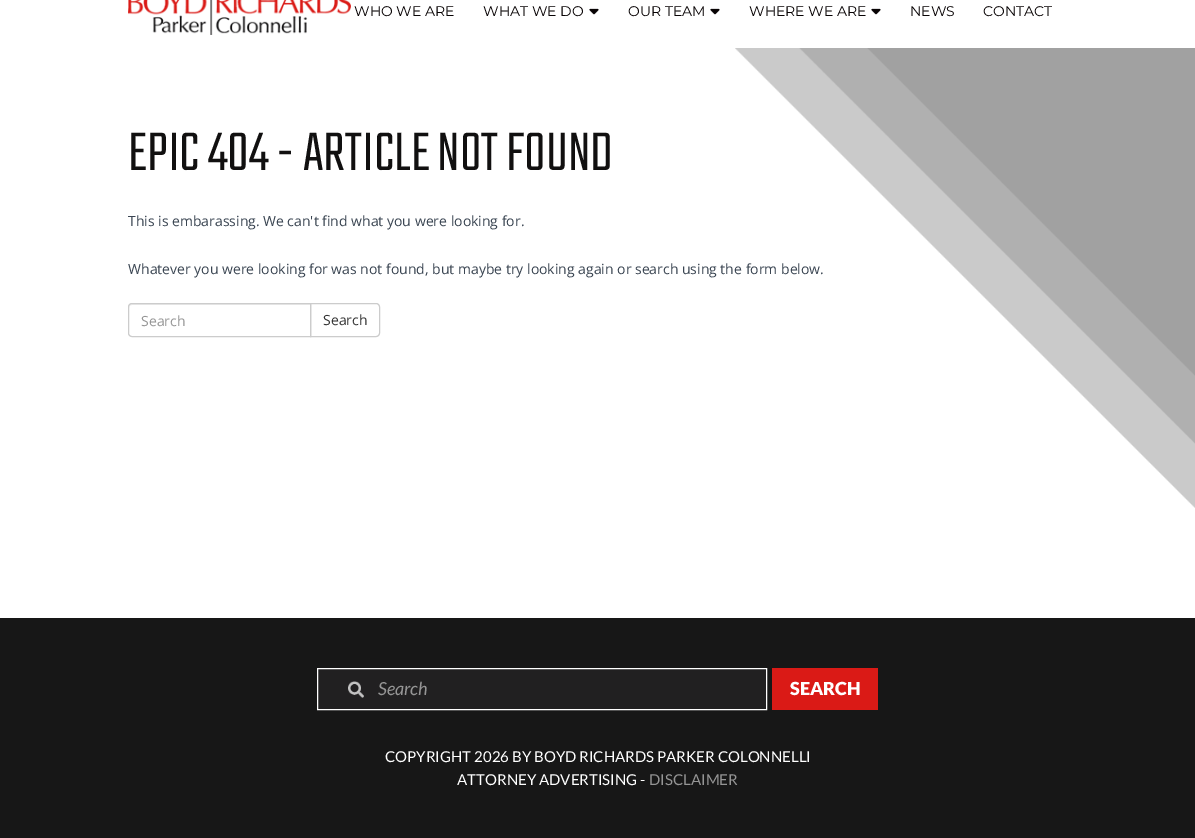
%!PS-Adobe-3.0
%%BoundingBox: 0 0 1195 838
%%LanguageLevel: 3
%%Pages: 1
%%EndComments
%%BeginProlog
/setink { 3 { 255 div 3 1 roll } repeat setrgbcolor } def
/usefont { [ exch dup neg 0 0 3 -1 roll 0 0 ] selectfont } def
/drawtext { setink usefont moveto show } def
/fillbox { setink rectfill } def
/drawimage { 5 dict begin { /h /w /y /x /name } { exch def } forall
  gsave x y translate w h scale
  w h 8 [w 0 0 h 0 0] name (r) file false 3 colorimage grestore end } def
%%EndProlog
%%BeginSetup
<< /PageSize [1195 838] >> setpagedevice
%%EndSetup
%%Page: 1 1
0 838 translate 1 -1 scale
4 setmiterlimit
0 0 1195 838 255 255 255 fillbox
(assets/img1.rgb) 128 0 223 35 drawimage
(WHO WE ARE) 354 16 /Montserrat-Thin 14 8 3 4 drawtext
(assets/img2.rgb) 589 8 10 7 drawimage
(WHAT WE DO) 483 16 /Montserrat-Thin 14 8 3 4 drawtext
(assets/img2.rgb) 710 8 10 7 drawimage
(OUR TEAM) 628 16 /Montserrat-Thin 14 8 3 4 drawtext
(assets/img2.rgb) 871 8 10 7 drawimage
(WHERE WE ARE) 749 16 /Montserrat-Thin 14 8 3 4 drawtext
(NEWS) 910 16 /Montserrat-Thin 14 8 3 4 drawtext
(CONTACT) 983 16 /Montserrat-Thin 14 8 3 4 drawtext
(assets/img3.rgb) 735 48 460 460 drawimage
(EPIC 404 - ARTICLE NOT FOUND) 128 170 /Teko-Light 60 17 16 16 drawtext
(This is embarassing. We can't find what you were looking for.) 128 226 /OpenSans-Regular 14 58 69 82 drawtext
(Whatever you were looking for was not found, but maybe try looking again or search using the form below.) 128 274 /OpenSans-Regular 14 58 69 82 drawtext
204 204 204 setink
310.5 303.5 moveto 376 303.5 lineto 378 303.5 379.5 305 379.5 307 curveto 379.5 333 lineto 379.5 335 378 336.5 376 336.5 curveto 310.5 336.5 lineto closepath stroke
255 255 255 setink
132 303 moveto 311 303 lineto 311 337 lineto 132 337 lineto 130 337 128 335 128 333 curveto 128 307 lineto 128 305 130 303 132 303 curveto closepath fill
236 236 236 setink
132 305 moveto 310 305 lineto 310 304 lineto 131 304 lineto 129 305 129 306 129 308 curveto 129 306 130 305 132 305 curveto closepath fill
204 204 204 setink
132 303.5 moveto 310.5 303.5 lineto 310.5 336.5 lineto 132 336.5 lineto 130 336.5 128.5 335 128.5 333 curveto 128.5 307 lineto 128.5 305 130 303.5 132 303.5 curveto closepath stroke
(Search) 141 326 /OpenSans-Regular 14 149 149 149 drawtext
(Search) 323 325 /OpenSans-Regular 14 51 51 51 drawtext
0 618 1195 220 23 23 23 fillbox
318 670 448 39 33 32 33 fillbox
(assets/img4.rgb) 348 681 16 17 drawimage
318 669 448 1 31 30 31 fillbox
255 255 255 setink
317.5 668.5 449 41 rectstroke
(Search) 378 695 /Lato-Italic 18 149 149 149 drawtext
772 668 106 42 218 26 22 fillbox
(SEARCH) 790 695 /Lato-Black 18 255 255 255 drawtext
(COPYRIGHT 2026 BY BOYD RICHARDS PARKER COLONNELLI) 385 762 /Lato-Regular 15 255 255 255 drawtext
(ATTORNEY ADVERTISING -) 457 785 /Lato-Regular 15 255 255 255 drawtext
(DISCLAIMER) 649 785 /Lato-Regular 15 149 149 149 drawtext
showpage
%%EOF
